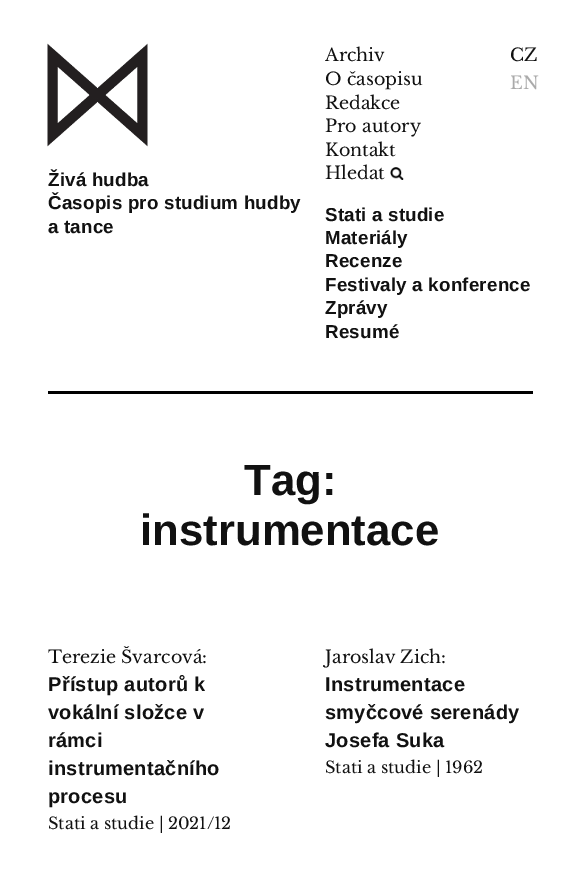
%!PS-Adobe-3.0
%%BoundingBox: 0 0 580 870
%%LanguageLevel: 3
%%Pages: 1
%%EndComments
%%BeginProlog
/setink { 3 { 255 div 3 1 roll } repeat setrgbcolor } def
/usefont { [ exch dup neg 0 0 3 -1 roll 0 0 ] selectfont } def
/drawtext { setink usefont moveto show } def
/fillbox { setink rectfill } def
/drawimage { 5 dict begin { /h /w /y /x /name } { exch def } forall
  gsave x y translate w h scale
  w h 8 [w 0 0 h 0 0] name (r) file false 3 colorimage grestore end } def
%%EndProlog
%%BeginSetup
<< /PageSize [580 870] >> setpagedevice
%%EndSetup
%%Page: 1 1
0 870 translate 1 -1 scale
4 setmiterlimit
0 0 580 870 255 255 255 fillbox
48 391 485 3 0 0 0 fillbox
(assets/img1.rgb) 47 43 101 104 drawimage
/Arimo-Bold 18.75 usefont
17 17 17 setink
48 186 moveto 0.2 0 (Živá hudba) ashow
48 209 moveto 0.2 0 (Časopis pro studium hudby) ashow
48 233 moveto 0.2 0 (a tance) ashow
(Archiv) 325 61 /LibreBaskerville-Regular 17.5 17 17 17 drawtext
(O časopisu) 325 85 /LibreBaskerville-Regular 17.5 17 17 17 drawtext
(Redakce) 325 109 /LibreBaskerville-Regular 17.5 17 17 17 drawtext
(Pro autory) 325 132 /LibreBaskerville-Regular 17.5 17 17 17 drawtext
(Kontakt) 325 156 /LibreBaskerville-Regular 17.5 17 17 17 drawtext
(Hledat) 325 179 /LibreBaskerville-Regular 17.5 17 17 17 drawtext
(assets/img2.rgb) 390 167 14 13 drawimage
/Arimo-Bold 18.75 usefont
325 221 moveto 0.2 0 (Stati a studie) ashow
325 244 moveto 0.2 0 (Materiály) ashow
325 267 moveto 0.2 0 (Recenze) ashow
325 291 moveto 0.2 0 (Festivaly a konference) ashow
325 314 moveto 0.2 0 (Zprávy) ashow
325 338 moveto 0.2 0 (Resumé) ashow
(CZ) 510 61 /LibreBaskerville-Regular 17.5 17 17 17 drawtext
(EN) 510 89 /LibreBaskerville-Regular 17.5 170 170 170 drawtext
(Tag:) 244 495 /Arimo-Bold 43.75 17 17 17 drawtext
(instrumentace) 140 545 /Arimo-Bold 43.75 17 17 17 drawtext
(Terezie Švarcová:) 48 663 /LibreBaskerville-Regular 17.5 17 17 17 drawtext
/Arimo-Bold 20 usefont
48 691 moveto 0.25 0 (Přístup autorů k) ashow
48 719 moveto 0.25 0 (vokální složce v) ashow
48 747 moveto 0.25 0 (rámci) ashow
48 775 moveto 0.25 0 (instrumentačního) ashow
48 803 moveto 0.25 0 (procesu) ashow
(Stati a studie | 2021/12) 48 829 /LibreBaskerville-Regular 16.25 17 17 17 drawtext
(Jaroslav Zich:) 325 663 /LibreBaskerville-Regular 17.5 17 17 17 drawtext
/Arimo-Bold 20 usefont
325 691 moveto 0.25 0 (Instrumentace) ashow
325 719 moveto 0.25 0 (smyčcové serenády) ashow
325 747 moveto 0.25 0 (Josefa Suka) ashow
(Stati a studie | 1962) 325 773 /LibreBaskerville-Regular 16.25 17 17 17 drawtext
showpage
%%EOF
